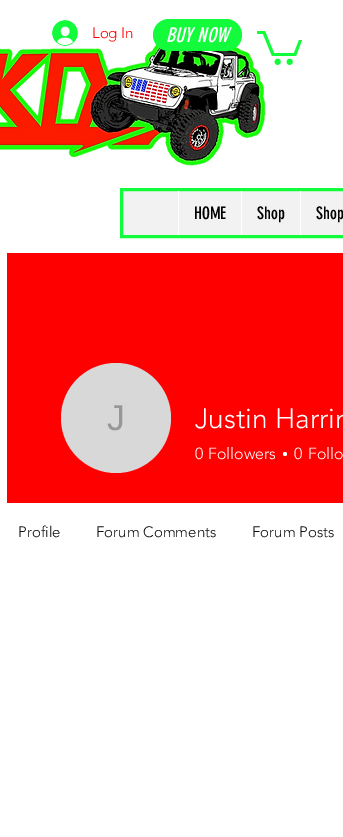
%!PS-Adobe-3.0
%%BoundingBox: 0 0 343 837
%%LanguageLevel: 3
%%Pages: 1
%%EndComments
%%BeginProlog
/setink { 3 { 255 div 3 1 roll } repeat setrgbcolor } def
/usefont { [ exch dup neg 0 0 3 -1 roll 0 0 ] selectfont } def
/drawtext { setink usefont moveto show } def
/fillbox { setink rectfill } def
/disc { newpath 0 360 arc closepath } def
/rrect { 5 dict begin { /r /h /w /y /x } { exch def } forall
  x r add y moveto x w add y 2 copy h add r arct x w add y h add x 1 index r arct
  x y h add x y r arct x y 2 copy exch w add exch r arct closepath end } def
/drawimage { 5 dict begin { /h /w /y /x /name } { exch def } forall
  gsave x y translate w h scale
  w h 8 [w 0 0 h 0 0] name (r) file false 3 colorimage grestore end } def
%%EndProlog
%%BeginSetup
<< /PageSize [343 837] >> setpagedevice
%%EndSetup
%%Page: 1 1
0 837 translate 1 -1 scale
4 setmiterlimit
0 0 343 837 255 255 255 fillbox
(assets/img2.rgb) 0 44 266 122 drawimage
(assets/img1.rgb) 52 20 26 26 drawimage
(Log In) 92 38 /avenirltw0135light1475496-Light 15 255 0 0 drawtext
18 252 60 setink
153 19 89 32 16 rrect fill
(BUY NOW) 166 42 /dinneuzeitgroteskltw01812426-Italic 20 255 255 255 drawtext
18 252 60 setink
302 40 moveto 296 56 lineto 272 56 lineto 263 34 lineto 257 34 lineto 257 31 lineto 265 31 lineto 274 53 lineto 294 53 lineto 299 40 lineto fill
289.7 61.8 3 disc fill
277.7 61.8 3 disc fill
242 242 242 setink
121.5 189.5 moveto 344.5 189.5 lineto 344.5 236.5 lineto 121.5 236.5 lineto closepath gsave fill grestore
18 252 60 setink
3 setlinewidth
stroke
178 191 1 44 255 255 255 fillbox
(HOME) 194 219 /dinneuzeitgroteskltw01812426-Regular 17 0 0 0 drawtext
241 191 1 44 255 255 255 fillbox
(Shop) 257 219 /dinneuzeitgroteskltw01812426-Regular 17 0 0 0 drawtext
300 191 1 44 255 255 255 fillbox
(Shop) 316 219 /dinneuzeitgroteskltw01812426-Regular 17 0 0 0 drawtext
7 253 336 250 255 0 0 fillbox
216 216 216 setink
116 418 55 disc fill
(J) 107 430 /LiberationSans-Regular 36 151 151 151 drawtext
(Justin Harrin) 195 428 /avenirltw0135light1475496-Light 28 255 255 255 drawtext
(0) 195 459 /avenirltw0135light1475496-Light 16 255 255 255 drawtext
(Followers) 208 459 /avenirltw0135light1475496-Light 16 255 255 255 drawtext
285 454 2 disc fill
(0) 294 459 /avenirltw0135light1475496-Light 16 255 255 255 drawtext
(Follo) 308 459 /avenirltw0135light1475496-Light 16 255 255 255 drawtext
(Profile) 18 537 /avenirltw0135light1475496-Light 15 15 15 15 drawtext
(Forum Comments) 96 537 /avenirltw0135light1475496-Light 15 15 15 15 drawtext
(Forum Posts) 252 537 /avenirltw0135light1475496-Light 15 15 15 15 drawtext
showpage
%%EOF
